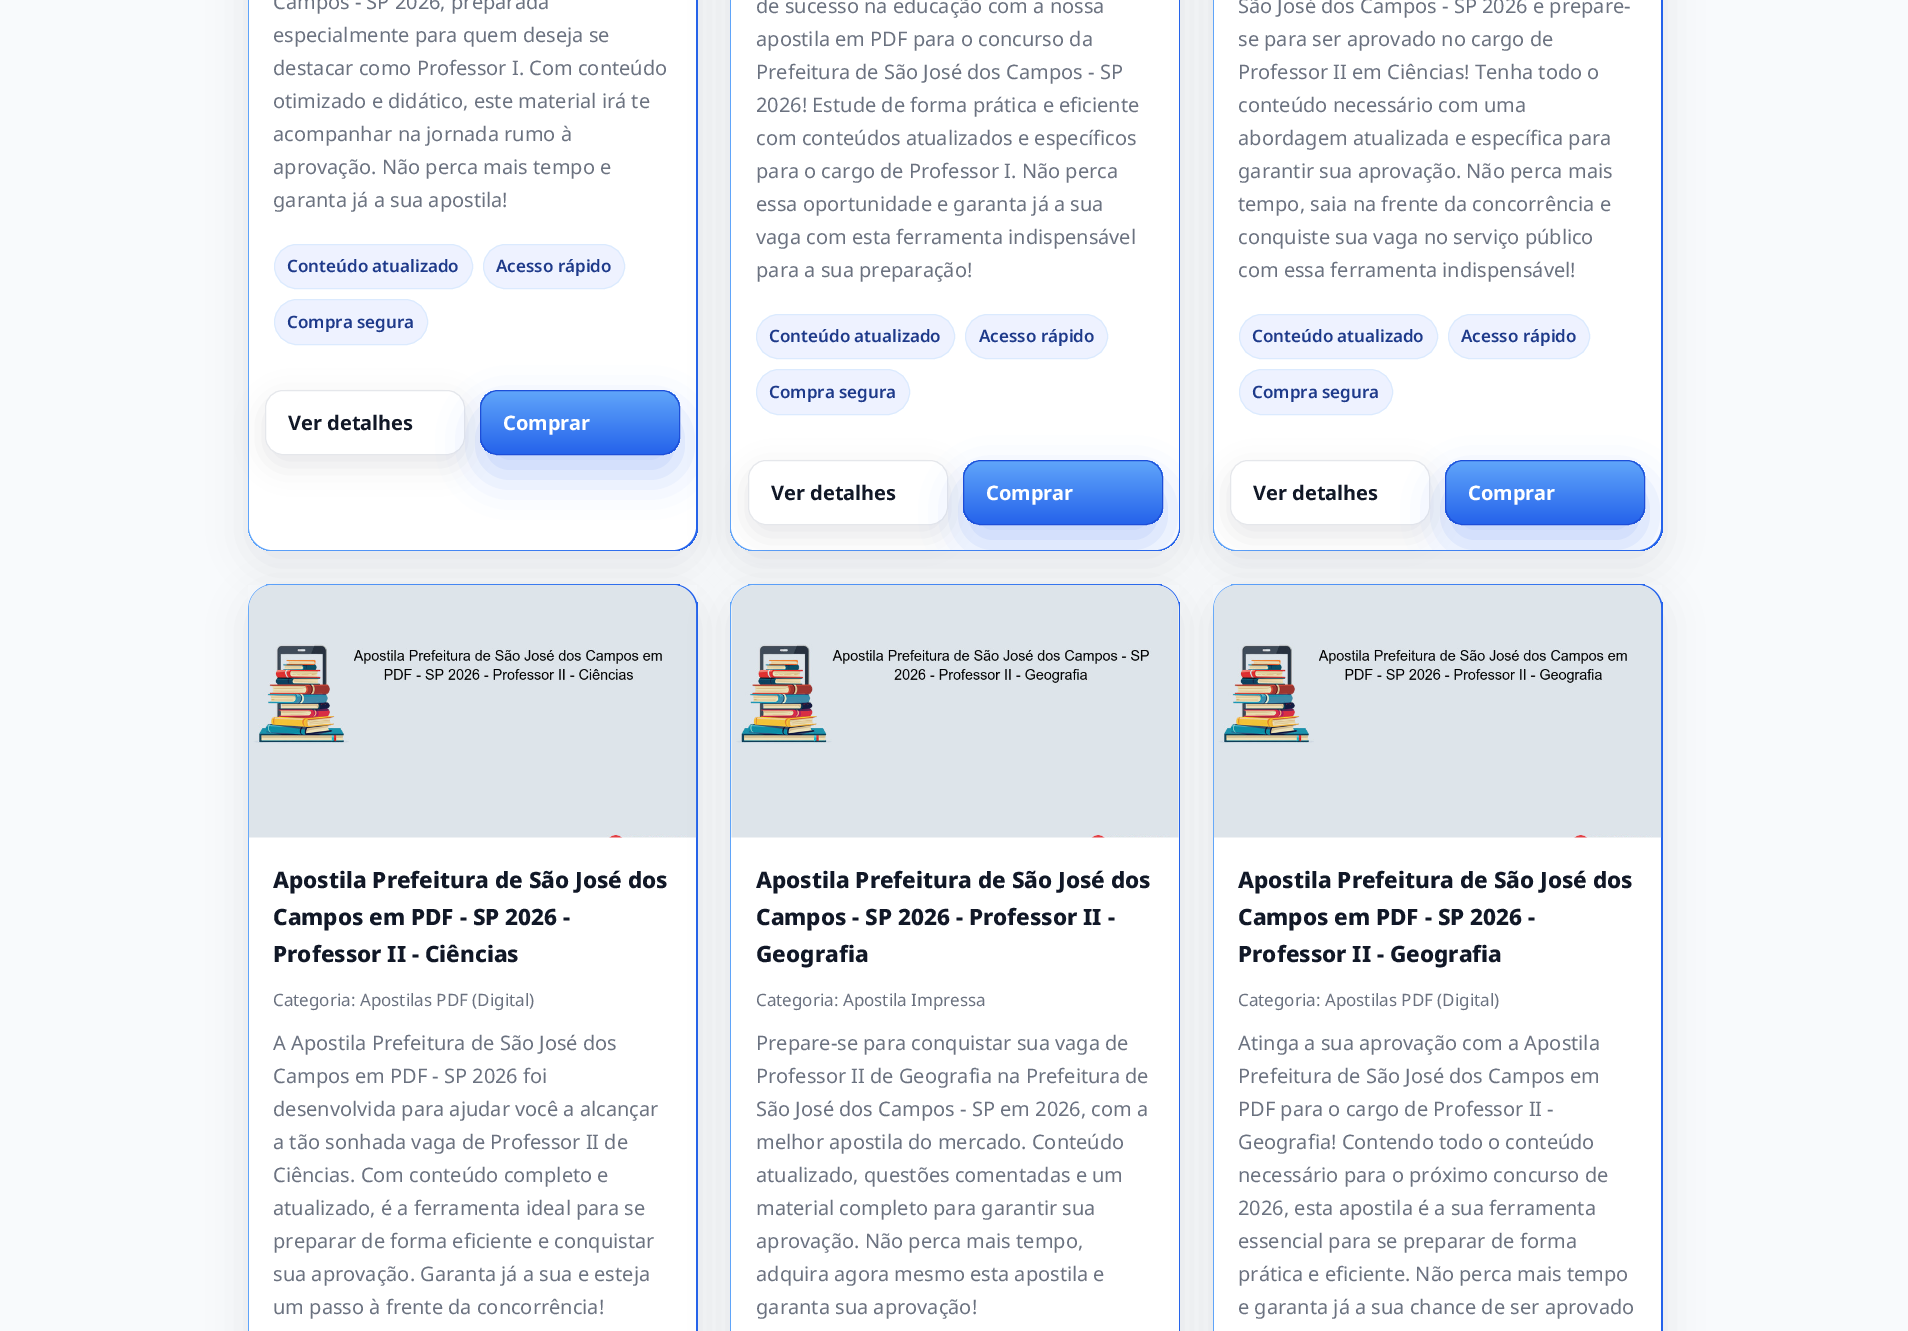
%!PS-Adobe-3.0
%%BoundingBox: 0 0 1908 1331
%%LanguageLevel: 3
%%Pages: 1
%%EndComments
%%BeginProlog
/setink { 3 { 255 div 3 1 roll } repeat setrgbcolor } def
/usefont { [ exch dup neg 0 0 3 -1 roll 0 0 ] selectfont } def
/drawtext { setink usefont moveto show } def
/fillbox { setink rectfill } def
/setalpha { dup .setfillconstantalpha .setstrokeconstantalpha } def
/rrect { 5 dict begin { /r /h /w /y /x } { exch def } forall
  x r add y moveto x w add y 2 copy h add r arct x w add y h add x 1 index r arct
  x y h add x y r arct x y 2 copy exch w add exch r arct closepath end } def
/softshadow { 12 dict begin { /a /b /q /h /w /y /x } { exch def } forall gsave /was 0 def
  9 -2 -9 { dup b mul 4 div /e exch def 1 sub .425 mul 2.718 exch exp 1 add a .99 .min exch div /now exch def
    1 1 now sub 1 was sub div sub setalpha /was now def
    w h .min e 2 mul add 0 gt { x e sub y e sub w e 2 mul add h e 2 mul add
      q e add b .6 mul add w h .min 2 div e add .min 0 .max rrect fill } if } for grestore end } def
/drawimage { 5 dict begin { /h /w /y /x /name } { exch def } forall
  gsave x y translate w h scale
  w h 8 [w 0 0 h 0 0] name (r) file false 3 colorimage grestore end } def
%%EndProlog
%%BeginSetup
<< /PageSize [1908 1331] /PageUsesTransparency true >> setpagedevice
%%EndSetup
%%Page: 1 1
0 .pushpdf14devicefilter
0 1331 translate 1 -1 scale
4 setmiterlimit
0 0 1908 1331 248 250 252 fillbox
2 6 23 setink
248 -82 450 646 25 19 0.08 softshadow
gsave 248 -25 450 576 25 rrect clip newpath
<< /ShadingType 2 /ColorSpace /DeviceRGB /Coords [247 33 698 32] /Extend [true true] /Function << /FunctionType 2 /Domain [0 1] /C0 [0.376 0.647 0.98] /C1 [0.145 0.388 0.922] /N 1 >> >> shfill grestore
255 255 255 setink
249 -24 447 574 24 rrect fill
(Campos - SP 2026, preparada) 273 9 /NotoSans-Regular 20 107 114 128 drawtext
(especialmente para quem deseja se) 273 42 /NotoSans-Regular 20 107 114 128 drawtext
(destacar como Professor I. Com conteúdo) 273 75 /NotoSans-Regular 20 107 114 128 drawtext
(otimizado e didático, este material irá te) 273 108 /NotoSans-Regular 20 107 114 128 drawtext
(acompanhar na jornada rumo à) 273 141 /NotoSans-Regular 20 107 114 128 drawtext
(aprovação. Não perca mais tempo e) 273 174 /NotoSans-Regular 20 107 114 128 drawtext
(garanta já a sua apostila!) 273 207 /NotoSans-Regular 20 107 114 128 drawtext
238 242 255 setink
274.5 244.5 198 44 22 rrect gsave fill grestore
219 234 254 setink
stroke
(Conteúdo atualizado) 287 272 /NotoSans-SemiBold 17 30 58 138 drawtext
238 242 255 setink
483.5 244.5 141 44 22 rrect gsave fill grestore
219 234 254 setink
stroke
(Acesso rápido) 496 272 /NotoSans-SemiBold 17 30 58 138 drawtext
238 242 255 setink
274.5 299.5 153 45 22.5 rrect gsave fill grestore
219 234 254 setink
stroke
(Compra segura) 287 328 /NotoSans-SemiBold 17 30 58 138 drawtext
2 6 23 setink
265 400 200 65 18 14 0.1 softshadow
255 255 255 setink
265.5 390.5 199 64 17.5 rrect gsave fill grestore
229 231 235 setink
stroke
(Ver detalhes) 288 430 /NotoSans-Bold 20 17 24 39 drawtext
gsave
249 -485 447 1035 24 rrect clip newpath
37 99 235 setink
480 410 200 65 18 20 0.28 softshadow
grestore
gsave
480 390 200 65 18 rrect clip newpath
gsave 480 391 moveto 680 391 lineto 680 454 lineto 480 454 lineto closepath clip newpath
<< /ShadingType 2 /ColorSpace /DeviceRGB /Coords [580 391 580 454] /Extend [true true] /Function << /FunctionType 2 /Domain [0 1] /C0 [0.376 0.647 0.98] /C1 [0.145 0.388 0.922] /N 1 >> >> shfill grestore
grestore
29 78 216 setink
480.5 390.5 199 64 17.5 rrect stroke
(Comprar) 503 430 /NotoSans-Bold 20 255 255 255 drawtext
2 6 23 setink
730 -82 450 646 25 19 0.08 softshadow
gsave 730 -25 450 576 25 rrect clip newpath
<< /ShadingType 2 /ColorSpace /DeviceRGB /Coords [730 33 1180 32] /Extend [true true] /Function << /FunctionType 2 /Domain [0 1] /C0 [0.376 0.647 0.98] /C1 [0.145 0.388 0.922] /N 1 >> >> shfill grestore
255 255 255 setink
731 -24 448 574 24 rrect fill
(de sucesso na educação com a nossa) 756 13 /NotoSans-Regular 20 107 114 128 drawtext
(apostila em PDF para o concurso da) 756 46 /NotoSans-Regular 20 107 114 128 drawtext
(Prefeitura de São José dos Campos - SP) 756 79 /NotoSans-Regular 20 107 114 128 drawtext
(2026! Estude de forma prática e eficiente) 756 112 /NotoSans-Regular 20 107 114 128 drawtext
(com conteúdos atualizados e específicos) 756 145 /NotoSans-Regular 20 107 114 128 drawtext
(para o cargo de Professor I. Não perca) 756 178 /NotoSans-Regular 20 107 114 128 drawtext
(essa oportunidade e garanta já a sua) 756 211 /NotoSans-Regular 20 107 114 128 drawtext
(vaga com esta ferramenta indispensável) 756 244 /NotoSans-Regular 20 107 114 128 drawtext
(para a sua preparação!) 756 277 /NotoSans-Regular 20 107 114 128 drawtext
238 242 255 setink
756.5 314.5 198 44 22 rrect gsave fill grestore
219 234 254 setink
stroke
(Conteúdo atualizado) 769 342 /NotoSans-SemiBold 17 30 58 138 drawtext
238 242 255 setink
965.5 314.5 142 44 22 rrect gsave fill grestore
219 234 254 setink
stroke
(Acesso rápido) 979 342 /NotoSans-SemiBold 17 30 58 138 drawtext
238 242 255 setink
756.5 369.5 153 45 22.5 rrect gsave fill grestore
219 234 254 setink
stroke
(Compra segura) 769 398 /NotoSans-SemiBold 17 30 58 138 drawtext
2 6 23 setink
748 470 200 65 18 14 0.1 softshadow
255 255 255 setink
748.5 460.5 199 64 17.5 rrect gsave fill grestore
229 231 235 setink
stroke
(Ver detalhes) 771 500 /NotoSans-Bold 20 17 24 39 drawtext
gsave
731 -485 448 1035 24 rrect clip newpath
37 99 235 setink
963 480 200 65 18 20 0.28 softshadow
grestore
gsave
963 460 200 65 18 rrect clip newpath
gsave 963 461 moveto 1163 461 lineto 1163 524 lineto 963 524 lineto closepath clip newpath
<< /ShadingType 2 /ColorSpace /DeviceRGB /Coords [1063 461 1063 524] /Extend [true true] /Function << /FunctionType 2 /Domain [0 1] /C0 [0.376 0.647 0.98] /C1 [0.145 0.388 0.922] /N 1 >> >> shfill grestore
grestore
29 78 216 setink
963.5 460.5 199 64 17.5 rrect stroke
(Comprar) 986 500 /NotoSans-Bold 20 255 255 255 drawtext
2 6 23 setink
1213 -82 450 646 25 19 0.08 softshadow
gsave 1213 -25 450 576 25 rrect clip newpath
<< /ShadingType 2 /ColorSpace /DeviceRGB /Coords [1213 33 1663 32] /Extend [true true] /Function << /FunctionType 2 /Domain [0 1] /C0 [0.376 0.647 0.98] /C1 [0.145 0.388 0.922] /N 1 >> >> shfill grestore
255 255 255 setink
1214 -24 447 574 24 rrect fill
(São José dos Campos - SP 2026 e prepare-) 1238 13 /NotoSans-Regular 20 107 114 128 drawtext
(se para ser aprovado no cargo de) 1238 46 /NotoSans-Regular 20 107 114 128 drawtext
(Professor II em Ciências! Tenha todo o) 1238 79 /NotoSans-Regular 20 107 114 128 drawtext
(conteúdo necessário com uma) 1238 112 /NotoSans-Regular 20 107 114 128 drawtext
(abordagem atualizada e específica para) 1238 145 /NotoSans-Regular 20 107 114 128 drawtext
(garantir sua aprovação. Não perca mais) 1238 178 /NotoSans-Regular 20 107 114 128 drawtext
(tempo, saia na frente da concorrência e) 1238 211 /NotoSans-Regular 20 107 114 128 drawtext
(conquiste sua vaga no serviço público) 1238 244 /NotoSans-Regular 20 107 114 128 drawtext
(com essa ferramenta indispensável!) 1238 277 /NotoSans-Regular 20 107 114 128 drawtext
238 242 255 setink
1239.5 314.5 198 44 22 rrect gsave fill grestore
219 234 254 setink
stroke
(Conteúdo atualizado) 1252 342 /NotoSans-SemiBold 17 30 58 138 drawtext
238 242 255 setink
1448.5 314.5 141 44 22 rrect gsave fill grestore
219 234 254 setink
stroke
(Acesso rápido) 1461 342 /NotoSans-SemiBold 17 30 58 138 drawtext
238 242 255 setink
1239.5 369.5 153 45 22.5 rrect gsave fill grestore
219 234 254 setink
stroke
(Compra segura) 1252 398 /NotoSans-SemiBold 17 30 58 138 drawtext
2 6 23 setink
1230 470 200 65 18 14 0.1 softshadow
255 255 255 setink
1230.5 460.5 199 64 17.5 rrect gsave fill grestore
229 231 235 setink
stroke
(Ver detalhes) 1253 500 /NotoSans-Bold 20 17 24 39 drawtext
gsave
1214 -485 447 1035 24 rrect clip newpath
37 99 235 setink
1445 480 200 65 18 20 0.28 softshadow
grestore
gsave
1445 460 200 65 18 rrect clip newpath
gsave 1445 461 moveto 1645 461 lineto 1645 524 lineto 1445 524 lineto closepath clip newpath
<< /ShadingType 2 /ColorSpace /DeviceRGB /Coords [1545 461 1545 524] /Extend [true true] /Function << /FunctionType 2 /Domain [0 1] /C0 [0.376 0.647 0.98] /C1 [0.145 0.388 0.922] /N 1 >> >> shfill grestore
grestore
29 78 216 setink
1445.5 460.5 199 64 17.5 rrect stroke
(Comprar) 1468 500 /NotoSans-Bold 20 255 255 255 drawtext
2 6 23 setink
248 596 450 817 25 19 0.08 softshadow
gsave 248 584 450 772 25 rrect clip newpath
<< /ShadingType 2 /ColorSpace /DeviceRGB /Coords [247 1103 698 1103] /Extend [true true] /Function << /FunctionType 2 /Domain [0 1] /C0 [0.376 0.647 0.98] /C1 [0.145 0.388 0.922] /N 1 >> >> shfill grestore
255 255 255 setink
249 585 447 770 24 rrect fill
(assets/img1.rgb) 248 585 449 253 drawimage
(Apostila Prefeitura de São José dos) 273 888 /NotoSans-ExtraBold 22.5 17 24 39 drawtext
(Campos em PDF - SP 2026 -) 273 925 /NotoSans-ExtraBold 22.5 17 24 39 drawtext
(Professor II - Ciências) 273 962 /NotoSans-ExtraBold 22.5 17 24 39 drawtext
(Categoria: Apostilas PDF \(Digital\)) 273 1006 /NotoSans-Regular 17 107 114 128 drawtext
(A Apostila Prefeitura de São José dos) 273 1050 /NotoSans-Regular 20 107 114 128 drawtext
(Campos em PDF - SP 2026 foi) 273 1083 /NotoSans-Regular 20 107 114 128 drawtext
(desenvolvida para ajudar você a alcançar) 273 1116 /NotoSans-Regular 20 107 114 128 drawtext
(a tão sonhada vaga de Professor II de) 273 1149 /NotoSans-Regular 20 107 114 128 drawtext
(Ciências. Com conteúdo completo e) 273 1182 /NotoSans-Regular 20 107 114 128 drawtext
(atualizado, é a ferramenta ideal para se) 273 1215 /NotoSans-Regular 20 107 114 128 drawtext
(preparar de forma eficiente e conquistar) 273 1248 /NotoSans-Regular 20 107 114 128 drawtext
(sua aprovação. Garanta já a sua e esteja) 273 1281 /NotoSans-Regular 20 107 114 128 drawtext
(um passo à frente da concorrência!) 273 1314 /NotoSans-Regular 20 107 114 128 drawtext
2 6 23 setink
730 596 450 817 25 19 0.08 softshadow
gsave 730 584 450 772 25 rrect clip newpath
<< /ShadingType 2 /ColorSpace /DeviceRGB /Coords [730 1103 1180 1103] /Extend [true true] /Function << /FunctionType 2 /Domain [0 1] /C0 [0.376 0.647 0.98] /C1 [0.145 0.388 0.922] /N 1 >> >> shfill grestore
255 255 255 setink
731 585 448 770 24 rrect fill
(assets/img2.rgb) 731 585 448 253 drawimage
(Apostila Prefeitura de São José dos) 756 888 /NotoSans-ExtraBold 22.5 17 24 39 drawtext
(Campos - SP 2026 - Professor II -) 756 925 /NotoSans-ExtraBold 22.5 17 24 39 drawtext
(Geografia) 756 962 /NotoSans-ExtraBold 22.5 17 24 39 drawtext
(Categoria: Apostila Impressa) 756 1006 /NotoSans-Regular 17 107 114 128 drawtext
(Prepare-se para conquistar sua vaga de) 756 1050 /NotoSans-Regular 20 107 114 128 drawtext
(Professor II de Geografia na Prefeitura de) 756 1083 /NotoSans-Regular 20 107 114 128 drawtext
(São José dos Campos - SP em 2026, com a) 756 1116 /NotoSans-Regular 20 107 114 128 drawtext
(melhor apostila do mercado. Conteúdo) 756 1149 /NotoSans-Regular 20 107 114 128 drawtext
(atualizado, questões comentadas e um) 756 1182 /NotoSans-Regular 20 107 114 128 drawtext
(material completo para garantir sua) 756 1215 /NotoSans-Regular 20 107 114 128 drawtext
(aprovação. Não perca mais tempo,) 756 1248 /NotoSans-Regular 20 107 114 128 drawtext
(adquira agora mesmo esta apostila e) 756 1281 /NotoSans-Regular 20 107 114 128 drawtext
(garanta sua aprovação!) 756 1314 /NotoSans-Regular 20 107 114 128 drawtext
2 6 23 setink
1213 596 450 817 25 19 0.08 softshadow
gsave 1213 584 450 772 25 rrect clip newpath
<< /ShadingType 2 /ColorSpace /DeviceRGB /Coords [1213 1103 1663 1103] /Extend [true true] /Function << /FunctionType 2 /Domain [0 1] /C0 [0.376 0.647 0.98] /C1 [0.145 0.388 0.922] /N 1 >> >> shfill grestore
255 255 255 setink
1214 585 447 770 24 rrect fill
(assets/img3.rgb) 1213 585 449 253 drawimage
(Apostila Prefeitura de São José dos) 1238 888 /NotoSans-ExtraBold 22.5 17 24 39 drawtext
(Campos em PDF - SP 2026 -) 1238 925 /NotoSans-ExtraBold 22.5 17 24 39 drawtext
(Professor II - Geografia) 1238 962 /NotoSans-ExtraBold 22.5 17 24 39 drawtext
(Categoria: Apostilas PDF \(Digital\)) 1238 1006 /NotoSans-Regular 17 107 114 128 drawtext
(Atinga a sua aprovação com a Apostila) 1238 1050 /NotoSans-Regular 20 107 114 128 drawtext
(Prefeitura de São José dos Campos em) 1238 1083 /NotoSans-Regular 20 107 114 128 drawtext
(PDF para o cargo de Professor II -) 1238 1116 /NotoSans-Regular 20 107 114 128 drawtext
(Geografia! Contendo todo o conteúdo) 1238 1149 /NotoSans-Regular 20 107 114 128 drawtext
(necessário para o próximo concurso de) 1238 1182 /NotoSans-Regular 20 107 114 128 drawtext
(2026, esta apostila é a sua ferramenta) 1238 1215 /NotoSans-Regular 20 107 114 128 drawtext
(essencial para se preparar de forma) 1238 1248 /NotoSans-Regular 20 107 114 128 drawtext
(prática e eficiente. Não perca mais tempo) 1238 1281 /NotoSans-Regular 20 107 114 128 drawtext
(e garanta já a sua chance de ser aprovado) 1238 1314 /NotoSans-Regular 20 107 114 128 drawtext
.poppdf14devicefilter showpage
%%EOF
